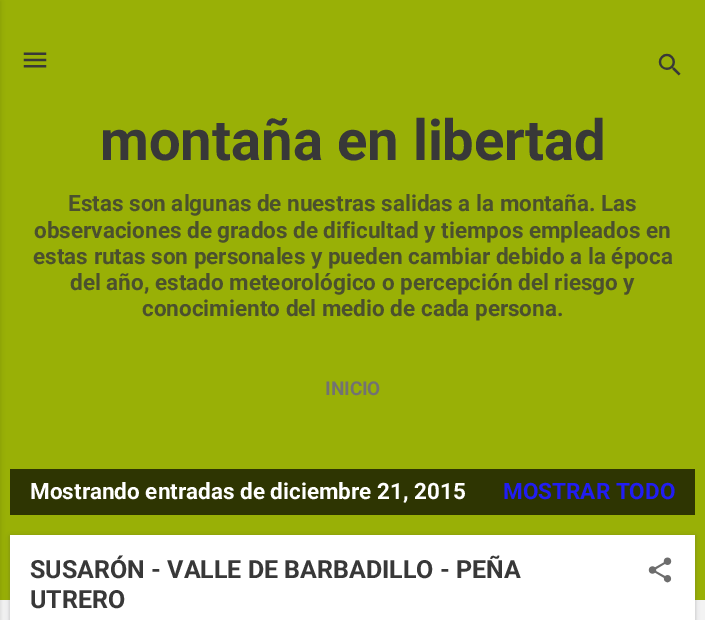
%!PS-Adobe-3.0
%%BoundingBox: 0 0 705 620
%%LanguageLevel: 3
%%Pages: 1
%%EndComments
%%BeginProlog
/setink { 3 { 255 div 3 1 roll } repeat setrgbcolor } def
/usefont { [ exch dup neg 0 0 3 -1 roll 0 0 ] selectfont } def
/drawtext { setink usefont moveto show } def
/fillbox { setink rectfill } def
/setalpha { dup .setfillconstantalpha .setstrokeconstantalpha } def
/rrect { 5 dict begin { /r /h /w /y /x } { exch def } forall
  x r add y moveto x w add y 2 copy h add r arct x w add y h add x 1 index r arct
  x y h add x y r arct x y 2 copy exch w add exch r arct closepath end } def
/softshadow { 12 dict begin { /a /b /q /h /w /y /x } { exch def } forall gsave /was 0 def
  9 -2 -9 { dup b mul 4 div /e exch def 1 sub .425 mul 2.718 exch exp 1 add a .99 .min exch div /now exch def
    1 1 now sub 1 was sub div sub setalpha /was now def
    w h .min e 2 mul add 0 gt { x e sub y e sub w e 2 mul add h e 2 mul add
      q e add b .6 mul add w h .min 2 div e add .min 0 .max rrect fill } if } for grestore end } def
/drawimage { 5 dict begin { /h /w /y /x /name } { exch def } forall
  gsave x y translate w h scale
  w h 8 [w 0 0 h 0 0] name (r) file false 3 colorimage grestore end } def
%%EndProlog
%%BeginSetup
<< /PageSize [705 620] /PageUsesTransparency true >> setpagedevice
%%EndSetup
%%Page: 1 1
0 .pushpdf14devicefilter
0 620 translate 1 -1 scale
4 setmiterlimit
0 0 705 620 243 243 243 fillbox
0 0 705 600 153 176 6 fillbox
0 0 0 setink
-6 1 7 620 0 2 0.1 softshadow
(assets/img1.rgb) 23 52 24 16 drawimage
(assets/img2.rgb) 658 53 23 23 drawimage
(montaña en libertad) 100 160 /Roboto-Bold 56.25 56 56 56 drawtext
(Estas son algunas de nuestras salidas a la montaña. Las) 68 211 /Roboto-Bold 22.5 75 80 46 drawtext
(observaciones de grados de dificultad y tiempos empleados en) 34 238 /Roboto-Bold 22.5 75 80 46 drawtext
(estas rutas son personales y pueden cambiar debido a la época) 33 264 /Roboto-Bold 22.5 75 80 46 drawtext
(del año, estado meteorológico o percepción del riesgo y) 70 290 /Roboto-Bold 22.5 75 80 46 drawtext
(conocimiento del medio de cada persona.) 142 316 /Roboto-Bold 22.5 75 80 46 drawtext
(INICIO) 325 395 /Roboto-Bold 19 114 114 114 drawtext
10 469 685 46 46 53 2 fillbox
(Mostrando entradas de diciembre 21, 2015) 30 499 /Roboto-Bold 22.5 255 255 255 drawtext
(MOSTRAR TODO) 503 499 /Roboto-Bold 22.5 33 29 243 drawtext
49 49 55 setink
10 536 685 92 0 2.5 0.3 softshadow
10 535 685 85 255 255 255 fillbox
(SUSARÓN - VALLE DE BARBADILLO - PEÑA) 30 578 /Roboto-Bold 25 56 56 56 drawtext
(UTRERO) 30 608 /Roboto-Bold 25 56 56 56 drawtext
(assets/img3.rgb) 648 557 24 26 drawimage
.poppdf14devicefilter showpage
%%EOF
